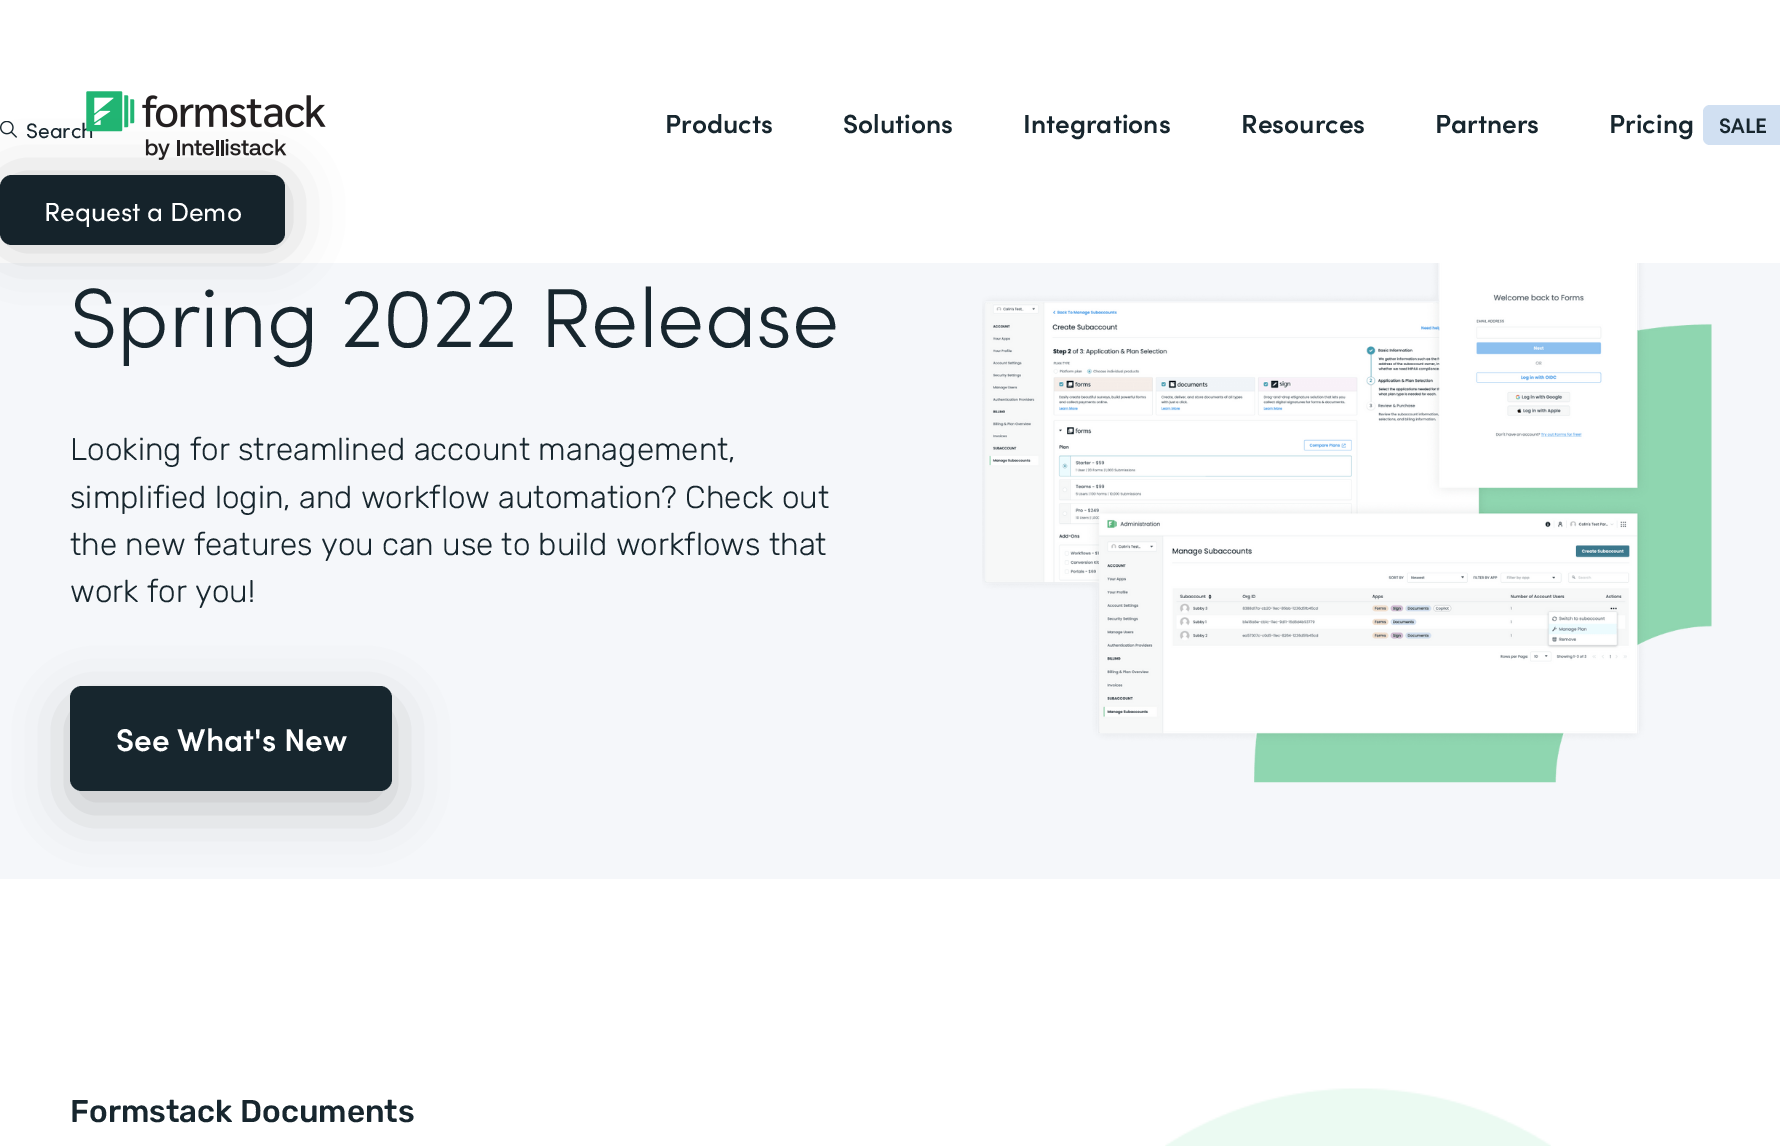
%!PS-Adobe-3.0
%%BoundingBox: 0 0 1780 1146
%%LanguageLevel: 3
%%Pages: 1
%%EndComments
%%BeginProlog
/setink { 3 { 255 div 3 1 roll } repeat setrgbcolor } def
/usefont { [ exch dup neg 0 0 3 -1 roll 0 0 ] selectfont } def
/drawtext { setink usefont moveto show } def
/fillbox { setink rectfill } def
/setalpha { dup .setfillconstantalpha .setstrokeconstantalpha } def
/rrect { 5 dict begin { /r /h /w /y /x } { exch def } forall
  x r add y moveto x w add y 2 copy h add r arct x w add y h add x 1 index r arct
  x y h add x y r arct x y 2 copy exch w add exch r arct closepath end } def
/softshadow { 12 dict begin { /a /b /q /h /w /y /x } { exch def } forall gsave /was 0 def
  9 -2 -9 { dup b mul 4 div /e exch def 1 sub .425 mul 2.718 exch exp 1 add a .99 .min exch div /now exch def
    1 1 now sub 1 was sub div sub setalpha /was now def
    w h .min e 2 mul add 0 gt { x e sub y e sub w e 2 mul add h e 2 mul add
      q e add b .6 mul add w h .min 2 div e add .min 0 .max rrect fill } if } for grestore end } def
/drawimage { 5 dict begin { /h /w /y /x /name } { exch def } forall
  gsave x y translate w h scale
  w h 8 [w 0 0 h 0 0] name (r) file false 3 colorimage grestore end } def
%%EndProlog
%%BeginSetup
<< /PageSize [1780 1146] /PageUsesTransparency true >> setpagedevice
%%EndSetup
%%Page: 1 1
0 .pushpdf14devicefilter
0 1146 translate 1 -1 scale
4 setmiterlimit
0 0 1780 1146 255 255 255 fillbox
(assets/img1.rgb) 0 121 18 17 drawimage
(Search) 26 138 /Sofia-Regular 21 23 38 46 drawtext
(assets/img2.rgb) 86 91 240 69 drawimage
0 263 1780 616 245 247 250 fillbox
0 0 0 setink
2 177 285 70 12 26 0.2 softshadow
21 35 43 setink
0 175 285 70 12 rrect fill
(Request a Demo) 44 221 /Sofia-Regular 26.25 255 255 255 drawtext
(Products) 665 133 /Sofia-SemiBold 26.25 23 38 46 drawtext
(Solutions) 843 133 /Sofia-SemiBold 26.25 23 38 46 drawtext
(Integrations) 1023 133 /Sofia-SemiBold 26.25 23 38 46 drawtext
(Resources) 1241 133 /Sofia-SemiBold 26.25 23 38 46 drawtext
(Partners) 1435 133 /Sofia-SemiBold 26.25 23 38 46 drawtext
(Pricing) 1609 133 /Sofia-SemiBold 26.25 23 38 46 drawtext
209 224 242 setink
1703 105 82 40 7 rrect fill
(SALE) 1719 133 /Sofia-SemiBold 21 23 38 46 drawtext
(Spring 2022 Release) 70 347 /Sofia-Light 84 23 38 46 drawtext
(Looking for streamlined account management,) 70 460 /Rubik-Light 31.5 23 38 46 drawtext
(simplified login, and workflow automation? Check out) 70 508 /Rubik-Light 31.5 23 38 46 drawtext
(the new features you can use to build workflows that) 70 555 /Rubik-Light 31.5 23 38 46 drawtext
(work for you!) 70 602 /Rubik-Light 31.5 23 38 46 drawtext
0 0 0 setink
70 704 322 105 12 26 0.2 softshadow
23 38 46 setink
70 686 322 105 12 rrect fill
(See What's New) 116 751 /Sofia-SemiBold 31.5 255 255 255 drawtext
(assets/img3.rgb) 982 263 730 520 drawimage
(Formstack Documents) 70 1122 /Rubik-Medium 31.5 23 38 46 drawtext
(assets/img4.rgb) 1165 1088 386 58 drawimage
.poppdf14devicefilter showpage
%%EOF
